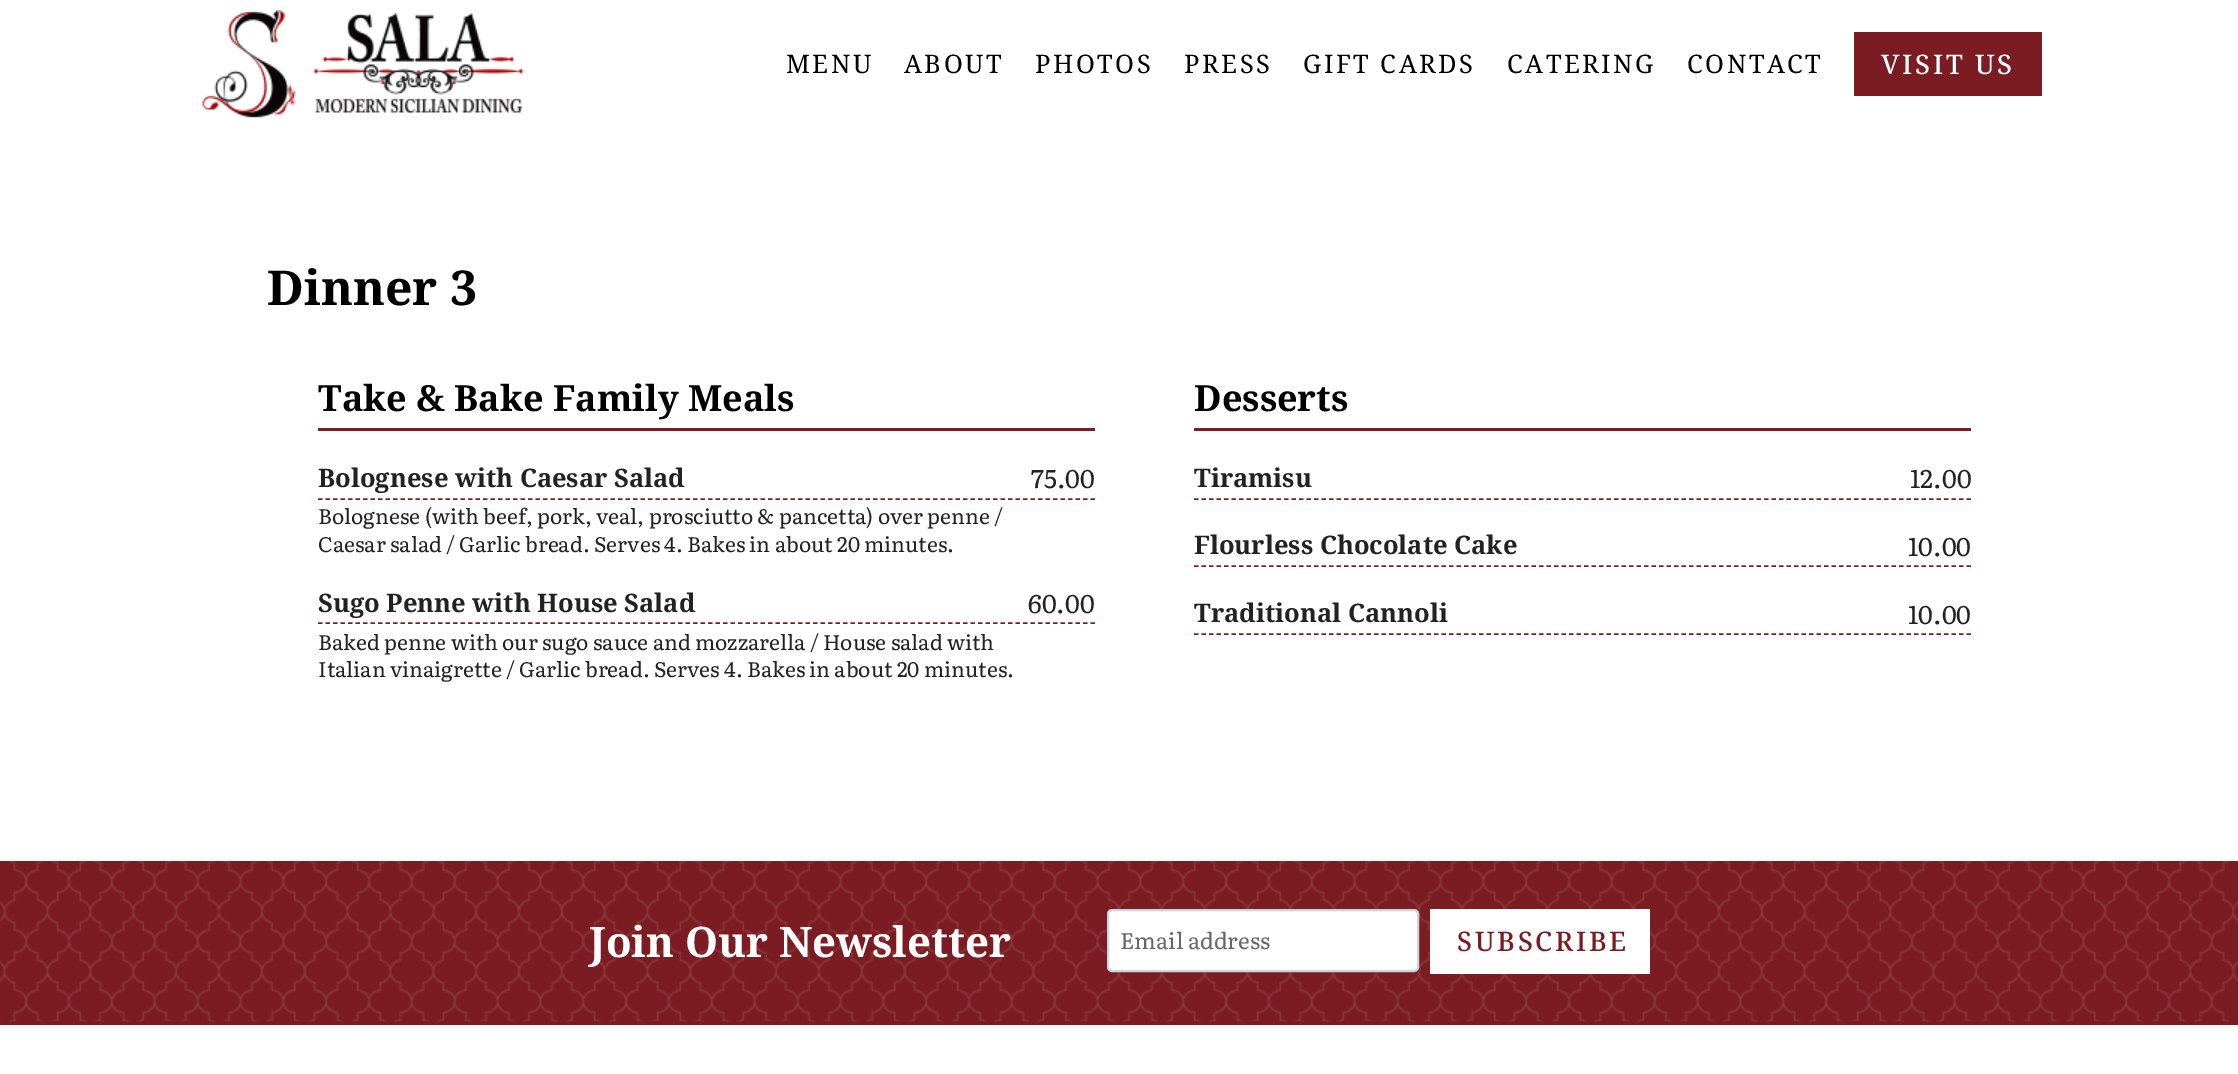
%!PS-Adobe-3.0
%%BoundingBox: 0 0 2238 1074
%%LanguageLevel: 3
%%Pages: 1
%%EndComments
%%BeginProlog
/setink { 3 { 255 div 3 1 roll } repeat setrgbcolor } def
/usefont { [ exch dup neg 0 0 3 -1 roll 0 0 ] selectfont } def
/drawtext { setink usefont moveto show } def
/fillbox { setink rectfill } def
/rrect { 5 dict begin { /r /h /w /y /x } { exch def } forall
  x r add y moveto x w add y 2 copy h add r arct x w add y h add x 1 index r arct
  x y h add x y r arct x y 2 copy exch w add exch r arct closepath end } def
/drawimage { 5 dict begin { /h /w /y /x /name } { exch def } forall
  gsave x y translate w h scale
  w h 8 [w 0 0 h 0 0] name (r) file false 3 colorimage grestore end } def
%%EndProlog
%%BeginSetup
<< /PageSize [2238 1074] >> setpagedevice
%%EndSetup
%%Page: 1 1
0 1074 translate 1 -1 scale
4 setmiterlimit
0 0 2238 1074 255 255 255 fillbox
(assets/img1.rgb) 202 9 322 109 drawimage
/NotoSerif-Regular 25.5 usefont
0 0 0 setink
786 73 moveto 2.5 0 (MENU) ashow
904 73 moveto 2.5 0 (ABOUT) ashow
1035 73 moveto 2.5 0 (PHOTOS) ashow
1184 73 moveto 2.5 0 (PRESS) ashow
1303 73 moveto 2.5 0 (GIFT CARDS) ashow
1507 73 moveto 2.5 0 (CATERING) ashow
1687 73 moveto 2.5 0 (CONTACT) ashow
1854 32 188 64 122 28 33 fillbox
/NotoSerif-Medium 27 usefont
255 255 255 setink
1881 74 moveto 2.75 0 (VISIT US) ashow
(Dinner 3) 267 305 /NotoSerif-Bold 48 0 0 0 drawtext
318 428 777 3 122 28 33 fillbox
(Take & Bake Family Meals) 318 411 /NotoSerif-Bold 36 0 0 0 drawtext
122 28 33 setink
1.5 setlinewidth
[4.5 3] 0 setdash
318 499 moveto 1095 499 lineto stroke
(Bolognese with Caesar Salad) 318 487 /NotoSerif-Bold 25.5 34 34 34 drawtext
(75.00) 1031 488 /Literata-Regular 25.5 34 34 34 drawtext
(Bolognese \(with beef, pork, veal, prosciutto & pancetta\) over penne /) 318 524 /Literata-Regular 21 34 34 34 drawtext
(Caesar salad / Garlic bread. Serves 4. Bakes in about 20 minutes.) 318 552 /Literata-Regular 21 34 34 34 drawtext
122 28 33 setink
318 623 moveto 1095 623 lineto stroke
(Sugo Penne with House Salad) 318 612 /NotoSerif-Bold 25.5 34 34 34 drawtext
(60.00) 1028 613 /Literata-Regular 25.5 34 34 34 drawtext
(Baked penne with our sugo sauce and mozzarella / House salad with) 318 650 /Literata-Regular 21 34 34 34 drawtext
(Italian vinaigrette / Garlic bread. Serves 4. Bakes in about 20 minutes.) 318 677 /Literata-Regular 21 34 34 34 drawtext
1194 428 777 3 122 28 33 fillbox
(Desserts) 1194 411 /NotoSerif-Bold 36 0 0 0 drawtext
122 28 33 setink
1194 499 moveto 1971 499 lineto stroke
(Tiramisu) 1194 487 /NotoSerif-Bold 25.5 34 34 34 drawtext
(12.00) 1910 488 /Literata-Regular 25.5 34 34 34 drawtext
122 28 33 setink
1194 566 moveto 1971 566 lineto stroke
(Flourless Chocolate Cake) 1194 554 /NotoSerif-Bold 25.5 34 34 34 drawtext
(10.00) 1908 556 /Literata-Regular 25.5 34 34 34 drawtext
122 28 33 setink
1194 634 moveto 1971 634 lineto stroke
(Traditional Cannoli) 1194 622 /NotoSerif-Bold 25.5 34 34 34 drawtext
(10.00) 1908 624 /Literata-Regular 25.5 34 34 34 drawtext
0 1021 2238 4 122 28 33 fillbox
(assets/img2.rgb) 0 861 2238 161 drawimage
(Join Our Newsletter) 589 957 /NotoSerif-Bold 42 255 255 255 drawtext
1108 910 310 61 4 rrect gsave fill grestore
203 213 224 setink
2 setlinewidth
[] 0 setdash
stroke
(Email address) 1120 949 /Literata-Regular 22.5 102 102 102 drawtext
1430 909 220 65 255 255 255 fillbox
/NotoSerif-Medium 27 usefont
122 28 33 setink
1457 951 moveto 2.75 0 (SUBSCRIBE) ashow
showpage
%%EOF
